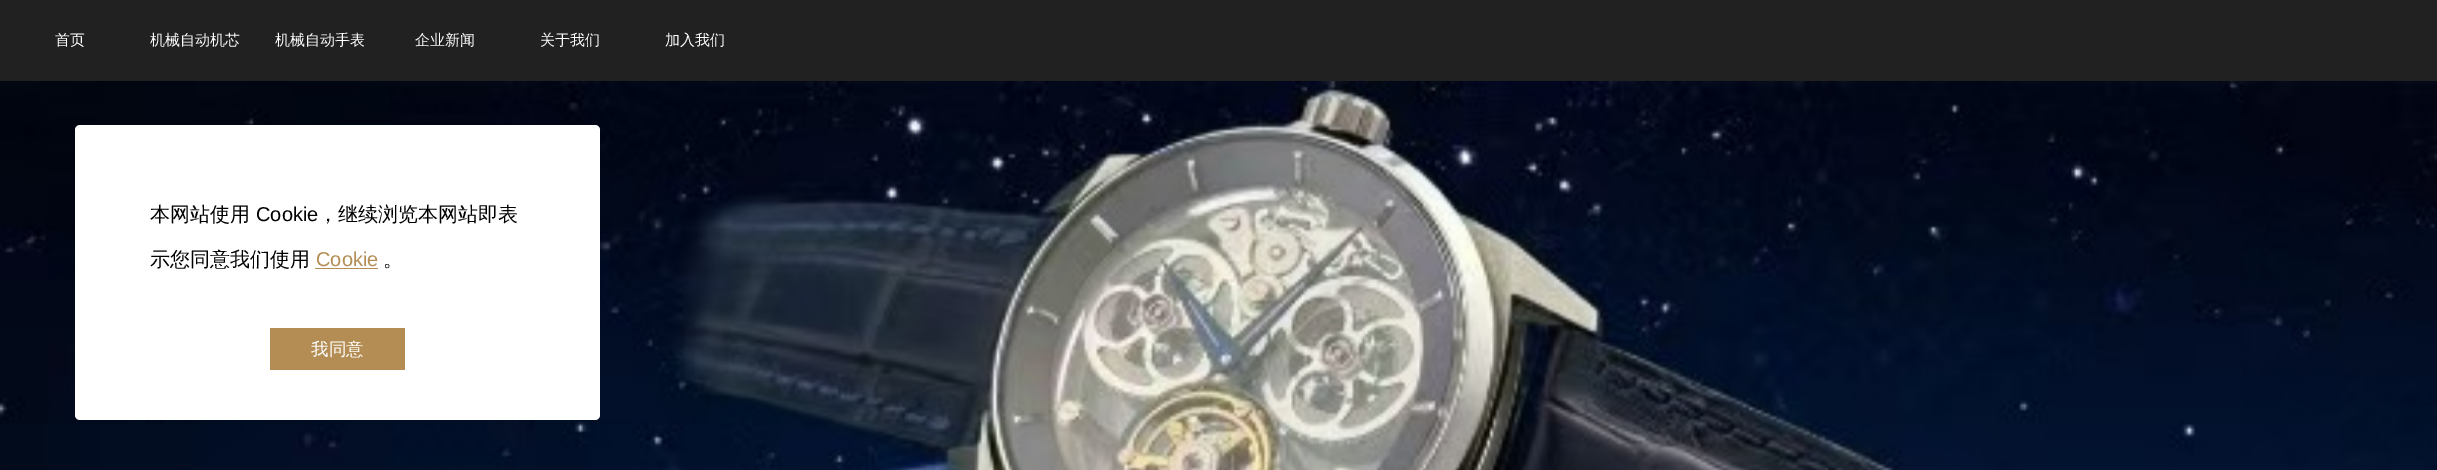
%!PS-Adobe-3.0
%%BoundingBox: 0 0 2437 470
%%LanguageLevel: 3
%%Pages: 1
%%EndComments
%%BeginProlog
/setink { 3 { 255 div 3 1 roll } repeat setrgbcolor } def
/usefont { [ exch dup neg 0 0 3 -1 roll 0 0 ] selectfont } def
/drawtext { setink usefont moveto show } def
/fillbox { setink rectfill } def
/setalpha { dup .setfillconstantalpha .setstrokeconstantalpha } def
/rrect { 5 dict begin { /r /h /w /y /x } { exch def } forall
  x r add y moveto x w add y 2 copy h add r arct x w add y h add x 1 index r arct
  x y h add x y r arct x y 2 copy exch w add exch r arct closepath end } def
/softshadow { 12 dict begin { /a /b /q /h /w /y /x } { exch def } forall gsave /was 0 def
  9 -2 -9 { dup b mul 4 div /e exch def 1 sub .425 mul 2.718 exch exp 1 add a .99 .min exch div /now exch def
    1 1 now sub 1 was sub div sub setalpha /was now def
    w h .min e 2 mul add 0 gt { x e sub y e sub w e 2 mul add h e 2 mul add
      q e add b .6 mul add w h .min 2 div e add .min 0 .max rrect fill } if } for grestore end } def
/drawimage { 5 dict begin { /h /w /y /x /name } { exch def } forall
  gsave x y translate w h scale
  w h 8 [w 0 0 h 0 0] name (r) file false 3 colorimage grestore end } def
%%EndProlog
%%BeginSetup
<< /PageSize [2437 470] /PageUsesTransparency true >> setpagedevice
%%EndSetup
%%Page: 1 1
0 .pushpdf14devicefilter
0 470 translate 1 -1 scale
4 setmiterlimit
0 0 2437 470 33 33 33 fillbox
(首页) 55 45 /WenQuanYiZenHei-Medium 15 255 255 255 drawtext
(机械自动机芯) 150 45 /WenQuanYiZenHei-Medium 15 255 255 255 drawtext
(机械自动手表) 275 45 /WenQuanYiZenHei-Medium 15 255 255 255 drawtext
(企业新闻) 415 45 /WenQuanYiZenHei-Medium 15 255 255 255 drawtext
(关于我们) 540 45 /WenQuanYiZenHei-Medium 15 255 255 255 drawtext
(加入我们) 665 45 /WenQuanYiZenHei-Medium 15 255 255 255 drawtext
(assets/img1.rgb) 0 81 2437 389 drawimage
0 0 0 setink
75 129 525 295 5 5 0.1 softshadow
255 255 255 setink
75 125 525 295 5 rrect fill
(本网站使用) 150 221 /WenQuanYiZenHei-Medium 20 0 0 0 drawtext
(Cookie) 256 221 /LiberationSans-Regular 20 0 0 0 drawtext
(，继续浏览本网站即表) 318 221 /WenQuanYiZenHei-Medium 20 0 0 0 drawtext
(示您同意我们使用) 150 266 /WenQuanYiZenHei-Medium 20 0 0 0 drawtext
(Cookie) 316 266 /LiberationSans-Regular 20 179 141 84 drawtext
315 268 63 1 179 141 84 fillbox
(。) 383 266 /WenQuanYiZenHei-Medium 20 0 0 0 drawtext
270 328 135 42 179 141 84 fillbox
(我同意) 311 355 /WenQuanYiZenHei-Medium 17.5 255 255 255 drawtext
.poppdf14devicefilter showpage
%%EOF
